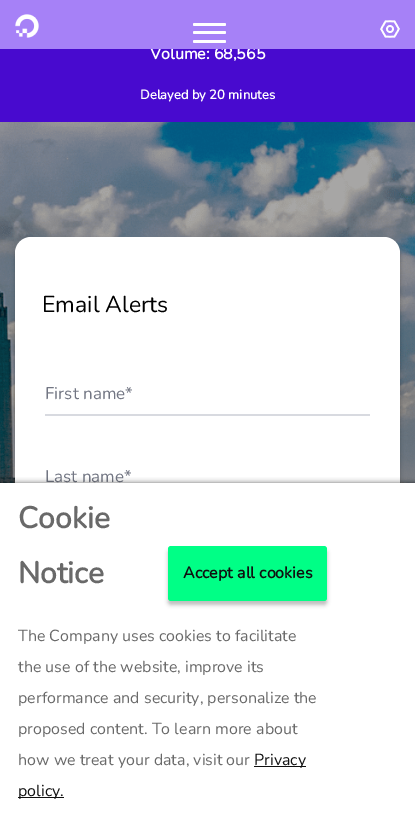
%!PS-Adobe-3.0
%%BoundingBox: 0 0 415 815
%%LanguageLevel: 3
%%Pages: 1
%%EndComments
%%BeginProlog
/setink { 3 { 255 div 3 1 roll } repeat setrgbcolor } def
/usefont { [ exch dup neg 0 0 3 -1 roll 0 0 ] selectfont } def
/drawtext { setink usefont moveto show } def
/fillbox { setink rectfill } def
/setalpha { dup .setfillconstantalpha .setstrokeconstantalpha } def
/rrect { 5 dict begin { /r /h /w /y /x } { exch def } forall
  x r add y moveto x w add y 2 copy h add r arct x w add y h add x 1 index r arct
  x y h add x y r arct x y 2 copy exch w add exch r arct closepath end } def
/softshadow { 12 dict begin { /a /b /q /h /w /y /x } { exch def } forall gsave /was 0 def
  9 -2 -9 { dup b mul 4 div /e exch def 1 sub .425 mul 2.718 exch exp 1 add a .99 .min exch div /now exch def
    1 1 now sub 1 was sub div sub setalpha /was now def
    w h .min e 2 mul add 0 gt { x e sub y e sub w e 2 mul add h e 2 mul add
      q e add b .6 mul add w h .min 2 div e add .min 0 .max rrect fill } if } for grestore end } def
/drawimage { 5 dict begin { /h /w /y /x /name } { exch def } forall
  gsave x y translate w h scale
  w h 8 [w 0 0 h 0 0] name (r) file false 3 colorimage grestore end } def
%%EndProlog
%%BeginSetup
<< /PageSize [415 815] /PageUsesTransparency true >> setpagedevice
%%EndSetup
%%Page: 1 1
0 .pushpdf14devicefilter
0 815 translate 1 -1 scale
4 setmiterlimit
0 0 415 815 255 255 255 fillbox
0 49 415 73 72 10 207 fillbox
(Volume: 68,565) 150 59 /Nunito-Bold 16 255 255 255 drawtext
0 0 415 49 166 129 247 fillbox
(assets/img1.rgb) 15 14 24 24 drawimage
255 255 255 setink
193 23 33 3 1.5 rrect fill
193 31 33 3 1.5 rrect fill
193 40 33 3 1.5 rrect fill
(assets/img2.rgb) 380 20 20 18 drawimage
(Delayed by 20 minutes) 140 99 /Nunito-Bold 13 255 255 255 drawtext
(assets/img3.rgb) 0 122 415 361 drawimage
0 0 0 setink
15 241 385 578 16 2 0.25 softshadow
255 255 255 setink
15 237 385 578 16 rrect fill
(Email Alerts) 42 312 /Nunito-ExtraLight 23 0 0 0 drawtext
45 414 325 2 216 218 224 fillbox
(First name*) 45 399 /Nunito-ExtraLight 17 114 118 131 drawtext
(Last name*) 45 482 /Nunito-ExtraLight 17 114 118 131 drawtext
29 29 29 setink
1 484 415 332 0 3 1 softshadow
0 483 415 332 255 255 255 fillbox
(Cookie) 18 528 /Nunito-Bold 30 105 105 105 drawtext
(Notice) 18 583 /Nunito-Bold 30 105 105 105 drawtext
(The Company uses cookies to facilitate) 18 641 /Nunito-ExtraLight 16 105 105 105 drawtext
(the use of the website, improve its) 18 672 /Nunito-ExtraLight 16 105 105 105 drawtext
(performance and security, personalize the) 18 703 /Nunito-ExtraLight 16 105 105 105 drawtext
(proposed content. To learn more about) 18 734 /Nunito-ExtraLight 16 105 105 105 drawtext
(how we treat your data, visit our) 18 765 /Nunito-ExtraLight 16 105 105 105 drawtext
254 766 52 1 16 16 16 fillbox
(Privacy) 254 765 /Nunito-ExtraLight 16 16 16 16 drawtext
18 797 46 1 16 16 16 fillbox
(policy.) 18 796 /Nunito-ExtraLight 16 16 16 16 drawtext
0 0 0 setink
168 550 159 55 3 2 0.25 softshadow
0 255 134 setink
168 546 159 55 3 rrect fill
(Accept all cookies) 183 578 /Nunito-Bold 16 16 16 16 drawtext
.poppdf14devicefilter showpage
%%EOF
